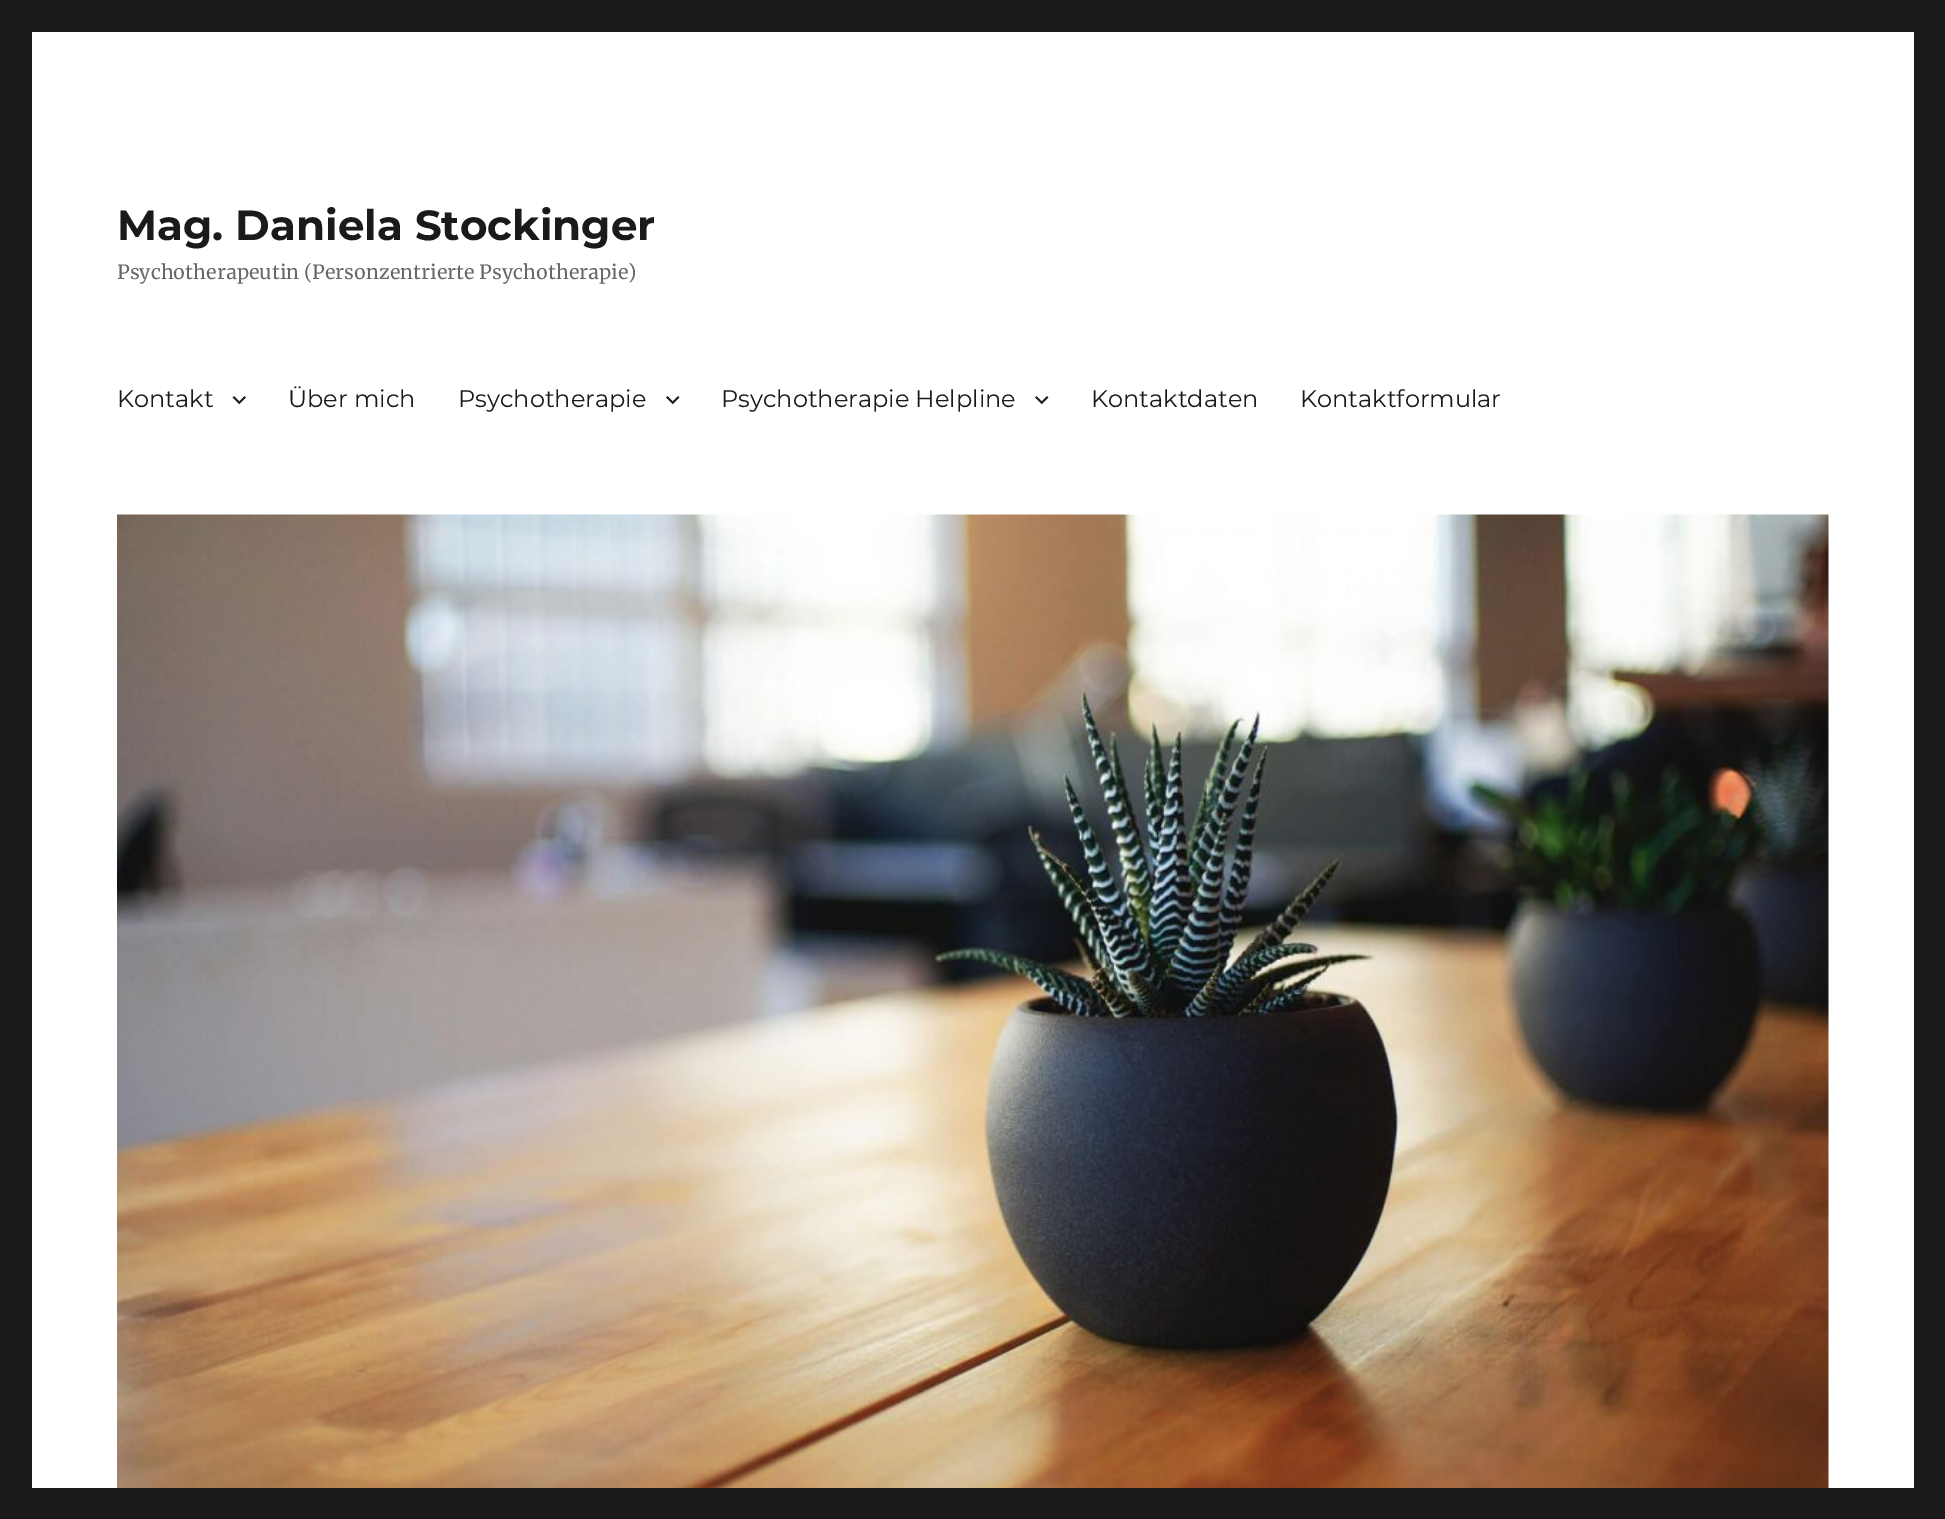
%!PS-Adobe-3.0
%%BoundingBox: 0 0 1945 1519
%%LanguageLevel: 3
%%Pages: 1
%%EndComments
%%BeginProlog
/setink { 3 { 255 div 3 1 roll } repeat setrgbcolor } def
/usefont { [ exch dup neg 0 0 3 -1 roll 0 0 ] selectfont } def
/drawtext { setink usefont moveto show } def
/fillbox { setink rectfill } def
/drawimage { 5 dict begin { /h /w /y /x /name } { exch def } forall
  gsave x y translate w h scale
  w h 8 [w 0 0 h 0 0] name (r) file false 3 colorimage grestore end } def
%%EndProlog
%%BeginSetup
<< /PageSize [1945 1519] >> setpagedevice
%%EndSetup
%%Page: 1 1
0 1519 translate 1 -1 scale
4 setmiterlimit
0 0 1945 1519 26 26 26 fillbox
32 32 1882 1456 255 255 255 fillbox
(Mag. Daniela Stockinger) 117 240 /Montserrat-Thin 42 26 26 26 drawtext
(Psychotherapeutin \(Personzentrierte Psychotherapie\)) 117 279 /Merriweather-Regular 19.5 104 104 104 drawtext
(Kontakt) 117 407 /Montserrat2-Thin 24 26 26 26 drawtext
(assets/img1.rgb) 232 396 14 9 drawimage
(Über mich) 288 407 /Montserrat2-Thin 24 26 26 26 drawtext
(Psychotherapie) 458 407 /Montserrat2-Thin 24 26 26 26 drawtext
(assets/img2.rgb) 666 396 14 9 drawimage
(Psychotherapie Helpline) 721 407 /Montserrat2-Thin 24 26 26 26 drawtext
(assets/img2.rgb) 1035 396 14 9 drawimage
(Kontaktdaten) 1091 407 /Montserrat2-Thin 24 26 26 26 drawtext
(Kontaktformular) 1300 407 /Montserrat2-Thin 24 26 26 26 drawtext
(assets/img3.rgb) 117 514 1712 974 drawimage
showpage
%%EOF
